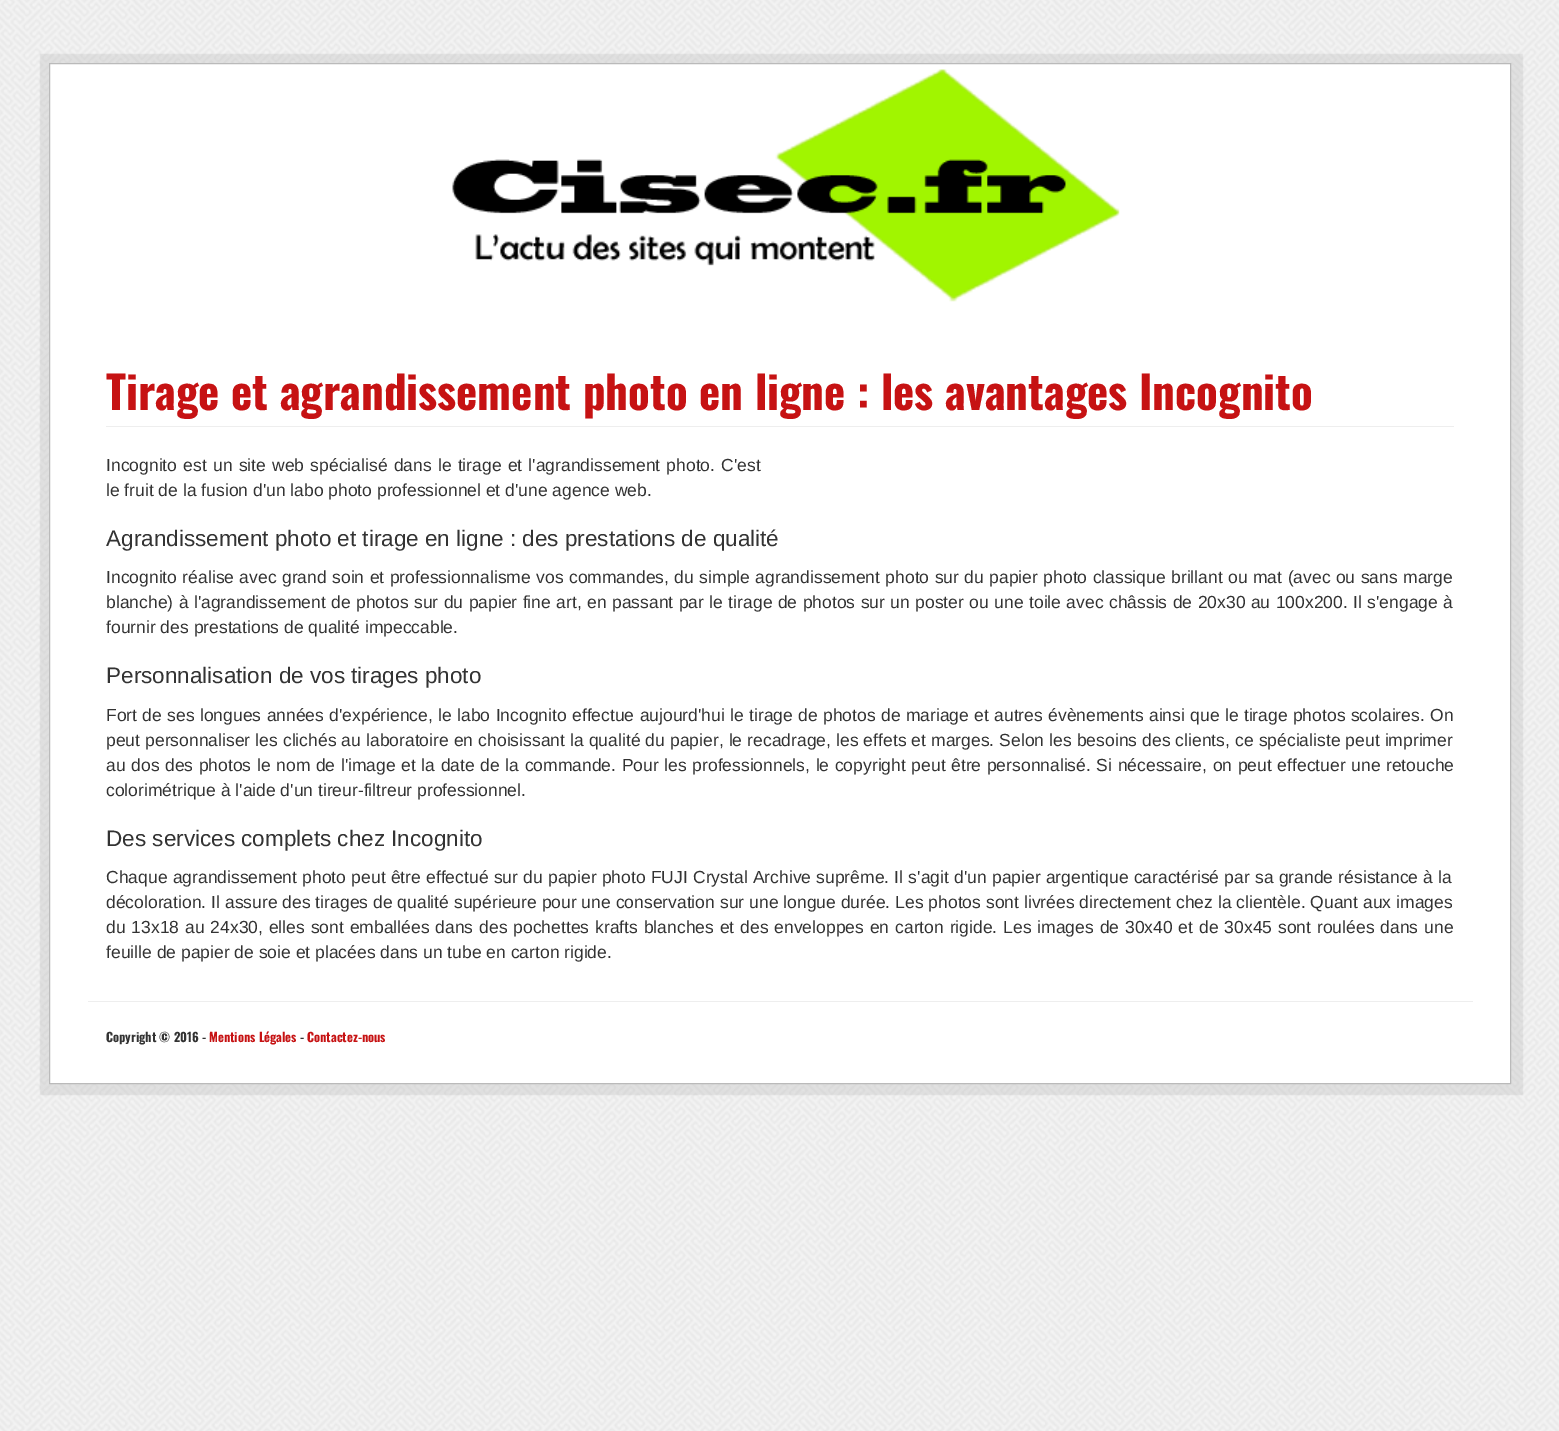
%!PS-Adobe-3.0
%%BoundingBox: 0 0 1559 1431
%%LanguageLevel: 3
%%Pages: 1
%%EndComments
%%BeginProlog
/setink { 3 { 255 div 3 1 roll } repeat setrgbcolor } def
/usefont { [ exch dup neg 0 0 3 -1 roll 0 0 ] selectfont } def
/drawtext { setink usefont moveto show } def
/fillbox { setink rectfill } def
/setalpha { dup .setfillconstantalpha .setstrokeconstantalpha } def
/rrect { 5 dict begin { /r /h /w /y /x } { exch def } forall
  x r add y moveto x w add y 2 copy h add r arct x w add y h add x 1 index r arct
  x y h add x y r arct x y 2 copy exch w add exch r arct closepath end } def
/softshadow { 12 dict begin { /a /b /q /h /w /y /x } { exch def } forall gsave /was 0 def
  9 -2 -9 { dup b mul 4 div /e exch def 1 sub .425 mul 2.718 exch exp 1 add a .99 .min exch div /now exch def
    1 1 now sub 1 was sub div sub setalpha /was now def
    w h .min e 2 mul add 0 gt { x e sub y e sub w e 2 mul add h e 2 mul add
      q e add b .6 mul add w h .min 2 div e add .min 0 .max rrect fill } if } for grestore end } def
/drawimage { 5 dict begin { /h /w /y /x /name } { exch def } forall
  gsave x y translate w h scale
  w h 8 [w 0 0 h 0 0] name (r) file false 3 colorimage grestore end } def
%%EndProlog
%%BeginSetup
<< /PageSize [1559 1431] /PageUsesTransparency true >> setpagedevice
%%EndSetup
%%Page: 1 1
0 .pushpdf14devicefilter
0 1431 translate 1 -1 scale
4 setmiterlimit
0 0 1559 1431 255 255 255 fillbox
(assets/img1.rgb) 0 0 1559 1431 drawimage
136 136 136 setink
40 54 1483 1041 0 0.5 0.17 softshadow
255 255 255 setink
49.5 63.5 moveto 1510.5 63.5 lineto 1510.5 1083.5 lineto 49.5 1083.5 lineto closepath gsave fill grestore
186 186 186 setink
stroke
(assets/img2.rgb) 452 69 668 233 drawimage
106 426 1348 1 238 238 238 fillbox
(Tirage et agrandissement photo en ligne : les avantages Incognito) 106 410 /Oswald-Bold 45 198 18 19 drawtext
/LiberationSans-Regular 17.5 usefont
51 51 51 setink
106 471 moveto 1.4 0 32 (Incognito est un site web spécialisé dans le tirage et l'agrandissement photo. C'est) widthshow
(le fruit de la fusion d'un labo photo professionnel et d'une agence web.) 106 496 /LiberationSans-Regular 17.5 51 51 51 drawtext
(Agrandissement photo et tirage en ligne : des prestations de qualité) 106 546 /LiberationSans-Regular 22.5 51 51 51 drawtext
/LiberationSans-Regular 17.5 usefont
106 583 moveto 0.6 0 32 (Incognito réalise avec grand soin et professionnalisme vos commandes, du simple agrandissement photo sur du papier photo classique brillant ou mat \(avec ou sans marge) widthshow
106 608 moveto 0.6 0 32 (blanche\) à l'agrandissement de photos sur du papier fine art, en passant par le tirage de photos sur un poster ou une toile avec châssis de 20x30 au 100x200. Il s'engage à) widthshow
(fournir des prestations de qualité impeccable.) 106 633 /LiberationSans-Regular 17.5 51 51 51 drawtext
(Personnalisation de vos tirages photo) 106 683 /LiberationSans-Regular 22.5 51 51 51 drawtext
/LiberationSans-Regular 17.5 usefont
106 721 moveto 0.5 0 32 (Fort de ses longues années d'expérience, le labo Incognito effectue aujourd'hui le tirage de photos de mariage et autres évènements ainsi que le tirage photos scolaires. On) widthshow
106 746 moveto 0.25 0 32 (peut personnaliser les clichés au laboratoire en choisissant la qualité du papier, le recadrage, les effets et marges. Selon les besoins des clients, ce spécialiste peut imprimer) widthshow
106 771 moveto 0.75 0 32 (au dos des photos le nom de l'image et la date de la commande. Pour les professionnels, le copyright peut être personnalisé. Si nécessaire, on peut effectuer une retouche) widthshow
(colorimétrique à l'aide d'un tireur-filtreur professionnel.) 106 796 /LiberationSans-Regular 17.5 51 51 51 drawtext
(Des services complets chez Incognito) 106 846 /LiberationSans-Regular 22.5 51 51 51 drawtext
/LiberationSans-Regular 17.5 usefont
106 883 moveto 0.4 0 32 (Chaque agrandissement photo peut être effectué sur du papier photo FUJI Crystal Archive suprême. Il s'agit d'un papier argentique caractérisé par sa grande résistance à la) widthshow
106 908 moveto 0.1 0 32 (décoloration. Il assure des tirages de qualité supérieure pour une conservation sur une longue durée. Les photos sont livrées directement chez la clientèle. Quant aux images) widthshow
106 933 moveto 1.05 0 32 (du 13x18 au 24x30, elles sont emballées dans des pochettes krafts blanches et des enveloppes en carton rigide. Les images de 30x40 et de 30x45 sont roulées dans une) widthshow
(feuille de papier de soie et placées dans un tube en carton rigide.) 106 958 /LiberationSans-Regular 17.5 51 51 51 drawtext
88 1001 1385 1 238 238 238 fillbox
(Copyright © 2016 -) 106 1042 /Oswald-Bold 12.5 51 51 51 drawtext
(Mentions Légales) 209 1042 /Oswald-Bold 12.5 198 18 19 drawtext
(-) 300 1042 /Oswald-Bold 12.5 51 51 51 drawtext
(Contactez-nous) 307 1042 /Oswald-Bold 12.5 198 18 19 drawtext
.poppdf14devicefilter showpage
%%EOF
